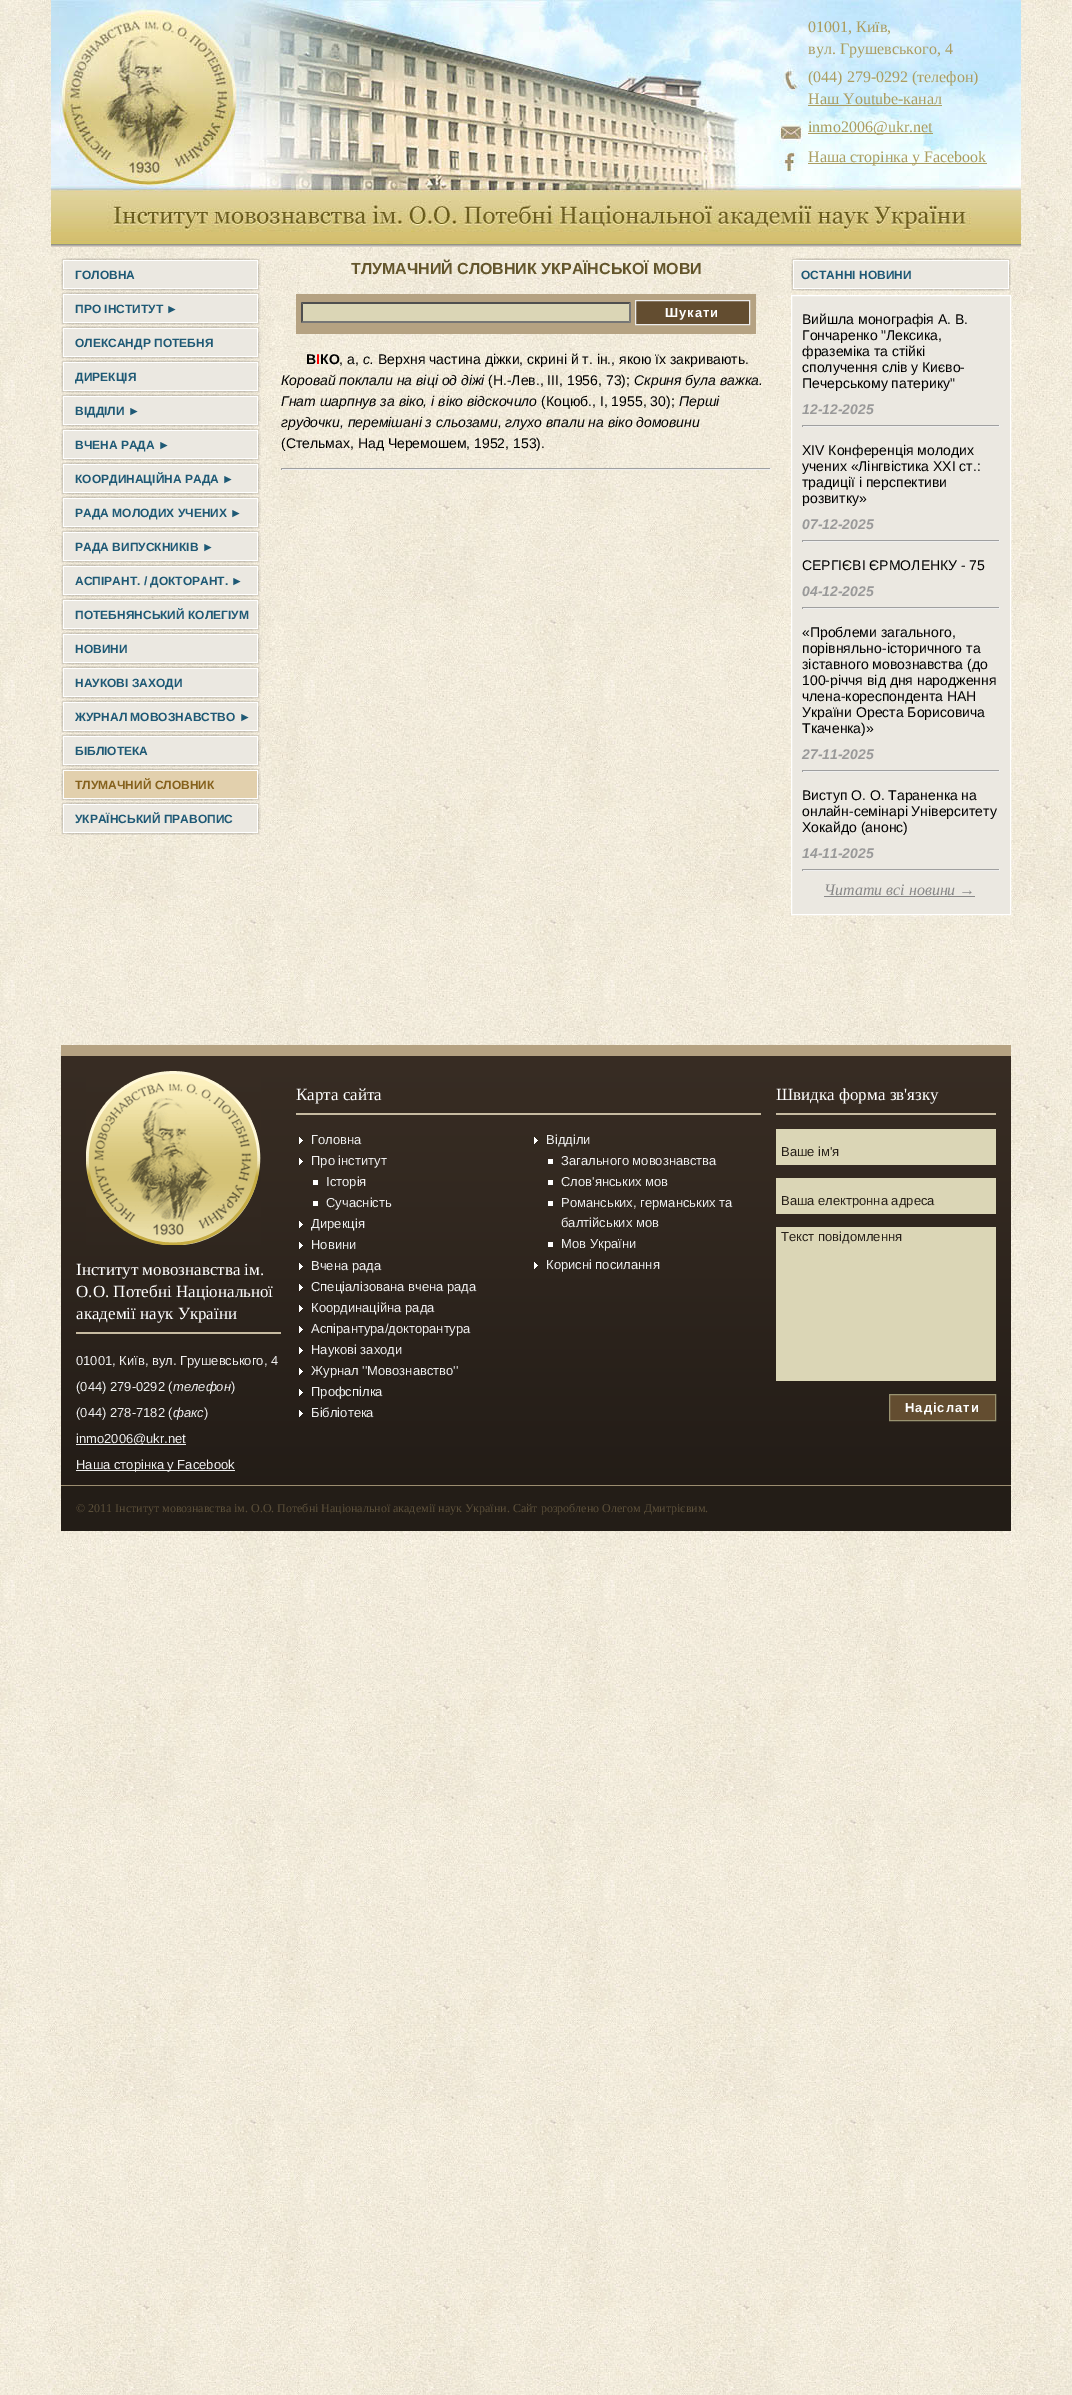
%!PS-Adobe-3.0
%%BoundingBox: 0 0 1072 2395
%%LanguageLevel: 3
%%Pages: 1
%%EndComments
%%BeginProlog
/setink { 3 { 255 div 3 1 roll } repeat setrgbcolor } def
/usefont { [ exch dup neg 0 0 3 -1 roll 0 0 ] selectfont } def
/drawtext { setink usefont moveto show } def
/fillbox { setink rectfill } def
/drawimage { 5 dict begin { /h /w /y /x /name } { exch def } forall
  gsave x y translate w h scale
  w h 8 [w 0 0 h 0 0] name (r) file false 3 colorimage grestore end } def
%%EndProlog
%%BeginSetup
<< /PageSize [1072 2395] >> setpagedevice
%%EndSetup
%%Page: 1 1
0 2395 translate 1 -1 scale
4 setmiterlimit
0 0 1072 2395 255 255 255 fillbox
(assets/img1.rgb) 0 0 1072 2395 drawimage
(assets/img2.rgb) 51 0 970 247 drawimage
(01001, Київ,) 808 32 /LiberationSerif-Regular 16 171 157 96 drawtext
(вул. Грушевського, 4) 808 54 /LiberationSerif-Regular 16 171 157 96 drawtext
(\(044\) 279-0292 \(телефон\)) 808 82 /LiberationSerif-Regular 16 171 157 96 drawtext
(Наш Youtube-канал) 808 104 /LiberationSerif-Regular 16 171 157 96 drawtext
808 105 134 1 171 157 96 fillbox
808 133 125 1 171 157 96 fillbox
(inmo2006@ukr.net) 808 132 /LiberationSerif-Regular 16 171 157 96 drawtext
808 163 179 1 171 157 96 fillbox
(Наша сторінка у Facebook) 808 162 /LiberationSerif-Regular 16 171 157 96 drawtext
(assets/img3.rgb) 61 258 200 33 drawimage
(ГОЛОВНА) 75 279 /LiberationSans-Bold 12 30 89 117 drawtext
(assets/img3.rgb) 61 292 200 33 drawimage
(ПРО ІНСТИТУТ ►) 75 313 /LiberationSans-Bold 12 30 89 117 drawtext
(assets/img3.rgb) 61 326 200 33 drawimage
(ОЛЕКСАНДР ПОТЕБНЯ) 75 347 /LiberationSans-Bold 12 30 89 117 drawtext
(assets/img3.rgb) 61 360 200 33 drawimage
(ДИРЕКЦІЯ) 75 381 /LiberationSans-Bold 12 30 89 117 drawtext
(assets/img3.rgb) 61 394 200 33 drawimage
(ВІДДІЛИ ►) 75 415 /LiberationSans-Bold 12 30 89 117 drawtext
(assets/img3.rgb) 61 428 200 33 drawimage
(ВЧЕНА РАДА ►) 75 449 /LiberationSans-Bold 12 30 89 117 drawtext
(assets/img3.rgb) 61 462 200 33 drawimage
(КООРДИНАЦІЙНА РАДА ►) 75 483 /LiberationSans-Bold 12 30 89 117 drawtext
(assets/img3.rgb) 61 496 200 33 drawimage
(РАДА МОЛОДИХ УЧЕНИХ ►) 75 517 /LiberationSans-Bold 12 30 89 117 drawtext
(assets/img3.rgb) 61 530 200 33 drawimage
(РАДА ВИПУСКНИКІВ ►) 75 551 /LiberationSans-Bold 12 30 89 117 drawtext
(assets/img3.rgb) 61 564 200 33 drawimage
(АСПІРАНТ. / ДОКТОРАНТ. ►) 75 585 /LiberationSans-Bold 12 30 89 117 drawtext
(assets/img3.rgb) 61 598 200 33 drawimage
(ПОТЕБНЯНСЬКИЙ КОЛЕГІУМ) 75 619 /LiberationSans-Bold 12 30 89 117 drawtext
(assets/img3.rgb) 61 632 200 33 drawimage
(НОВИНИ) 75 653 /LiberationSans-Bold 12 30 89 117 drawtext
(assets/img3.rgb) 61 666 200 33 drawimage
(НАУКОВІ ЗАХОДИ) 75 687 /LiberationSans-Bold 12 30 89 117 drawtext
(assets/img3.rgb) 61 700 200 33 drawimage
(ЖУРНАЛ МОВОЗНАВСТВО ►) 75 721 /LiberationSans-Bold 12 30 89 117 drawtext
(assets/img3.rgb) 61 734 200 33 drawimage
(БІБЛІОТЕКА) 75 755 /LiberationSans-Bold 12 30 89 117 drawtext
(assets/img4.rgb) 61 768 200 33 drawimage
(ТЛУМАЧНИЙ СЛОВНИК) 75 789 /LiberationSans-Bold 12 133 97 28 drawtext
(assets/img3.rgb) 61 802 200 33 drawimage
(УКРАЇНСЬКИЙ ПРАВОПИС) 75 823 /LiberationSans-Bold 12 30 89 117 drawtext
(ТЛУМАЧНИЙ СЛОВНИК УКРАЇНСЬКОЇ МОВИ) 351 274 /LiberationSans-Bold 16 99 85 43 drawtext
296 294 460 40 181 162 130 fillbox
301 302 330 21 219 214 182 fillbox
79 79 79 setink
301 302 moveto 631 302 lineto 629 304 lineto 303 304 lineto closepath fill
118 118 118 setink
631 302 moveto 631 323 lineto 629 321 lineto 629 304 lineto closepath fill
631 323 moveto 301 323 lineto 303 321 lineto 629 321 lineto closepath fill
79 79 79 setink
301 323 moveto 301 302 lineto 303 304 lineto 303 321 lineto closepath fill
99 77 48 setink
635.5 300.5 moveto 749.5 300.5 lineto 749.5 324.5 lineto 635.5 324.5 lineto closepath gsave fill grestore
235 235 235 setink
stroke
/LiberationSans-Bold 13 usefont
255 255 255 setink
665 317 moveto 1 0 (Шукати) ashow
(В КО) 306 364 /LiberationSans-Bold 14 0 0 0 drawtext
(Верхня частина діжки, скрині й т. ін., якою їх закривають.) 378 364 /LiberationSans-Regular 14 0 0 0 drawtext
(І) 316 364 /LiberationSans-Bold 14 255 0 0 drawtext
(, а,) 339 364 /LiberationSans-Regular 14 0 0 0 drawtext
(с.) 363 364 /LiberationSans-Italic 14 0 0 0 drawtext
(Коровай поклали на віці од діжі) 281 385 /LiberationSans-Italic 14 0 0 0 drawtext
(\(Н.-Лев., III, 1956, 73\);) 488 385 /LiberationSans-Regular 14 0 0 0 drawtext
(Скриня була важка.) 634 385 /LiberationSans-Italic 14 0 0 0 drawtext
(Гнат шарпнув за віко, і віко відскочило) 281 406 /LiberationSans-Italic 14 0 0 0 drawtext
(\(Коцюб., І, 1955, 30\);) 541 406 /LiberationSans-Regular 14 0 0 0 drawtext
(Перші) 679 406 /LiberationSans-Italic 14 0 0 0 drawtext
(грудочки, перемішані з сльозами, глухо впали на віко домовини) 281 427 /LiberationSans-Italic 14 0 0 0 drawtext
(\(Стельмах, Над Черемошем, 1952, 153\).) 281 448 /LiberationSans-Regular 14 0 0 0 drawtext
281 468 490 1 159 159 159 fillbox
770 468 1 2 238 238 238 fillbox
281 469 490 1 238 238 238 fillbox
281 468 1 2 159 159 159 fillbox
(assets/img5.rgb) 791 258 220 33 drawimage
(ОСТАННІ НОВИНИ) 801 279 /LiberationSans-Bold 12 30 89 117 drawtext
235 232 225 setink
791.5 295.5 moveto 1010.5 295.5 lineto 1010.5 914.5 lineto 791.5 914.5 lineto closepath gsave fill grestore
255 255 255 setink
stroke
(Вийшла монографія А. В.) 802 324 /LiberationSans-Regular 14 0 0 0 drawtext
(Гончаренко "Лексика,) 802 340 /LiberationSans-Regular 14 0 0 0 drawtext
(фраземіка та стійкі) 802 356 /LiberationSans-Regular 14 0 0 0 drawtext
(сполучення слів у Києво-) 802 372 /LiberationSans-Regular 14 0 0 0 drawtext
(Печерському патерику") 802 388 /LiberationSans-Regular 14 0 0 0 drawtext
(12-12-2025) 802 414 /LiberationSans-BoldItalic 14 153 153 153 drawtext
802 425 198 1 159 159 159 fillbox
999 425 1 2 238 238 238 fillbox
802 426 198 1 238 238 238 fillbox
802 425 1 2 159 159 159 fillbox
(XIV Конференція молодих) 802 455 /LiberationSans-Regular 14 0 0 0 drawtext
(учених «Лінгвістика ХХІ ст.:) 802 471 /LiberationSans-Regular 14 0 0 0 drawtext
(традиції і перспективи) 802 487 /LiberationSans-Regular 14 0 0 0 drawtext
(розвитку») 802 503 /LiberationSans-Regular 14 0 0 0 drawtext
(07-12-2025) 802 529 /LiberationSans-BoldItalic 14 153 153 153 drawtext
802 540 198 1 159 159 159 fillbox
999 540 1 2 238 238 238 fillbox
802 541 198 1 238 238 238 fillbox
802 540 1 2 159 159 159 fillbox
(СЕРГІЄВІ ЄРМОЛЕНКУ - 75) 802 570 /LiberationSans-Regular 14 0 0 0 drawtext
(04-12-2025) 802 596 /LiberationSans-BoldItalic 14 153 153 153 drawtext
802 607 198 1 159 159 159 fillbox
999 607 1 2 238 238 238 fillbox
802 608 198 1 238 238 238 fillbox
802 607 1 2 159 159 159 fillbox
(«Проблеми загального,) 802 637 /LiberationSans-Regular 14 0 0 0 drawtext
(порівняльно-історичного та) 802 653 /LiberationSans-Regular 14 0 0 0 drawtext
(зіставного мовознавства \(до) 802 669 /LiberationSans-Regular 14 0 0 0 drawtext
(100-річчя від дня народження) 802 685 /LiberationSans-Regular 14 0 0 0 drawtext
(члена-кореспондента НАН) 802 701 /LiberationSans-Regular 14 0 0 0 drawtext
(України Ореста Борисовича) 802 717 /LiberationSans-Regular 14 0 0 0 drawtext
(Ткаченка\)») 802 733 /LiberationSans-Regular 14 0 0 0 drawtext
(27-11-2025) 802 759 /LiberationSans-BoldItalic 14 153 153 153 drawtext
802 770 198 1 159 159 159 fillbox
999 770 1 2 238 238 238 fillbox
802 771 198 1 238 238 238 fillbox
802 770 1 2 159 159 159 fillbox
(Виступ О. О. Тараненка на) 802 800 /LiberationSans-Regular 14 0 0 0 drawtext
(онлайн-семінарі Університету) 802 816 /LiberationSans-Regular 14 0 0 0 drawtext
(Хокайдо \(анонс\)) 802 832 /LiberationSans-Regular 14 0 0 0 drawtext
(14-11-2025) 802 858 /LiberationSans-BoldItalic 14 153 153 153 drawtext
802 869 198 1 159 159 159 fillbox
999 869 1 2 238 238 238 fillbox
802 870 198 1 238 238 238 fillbox
802 869 1 2 159 159 159 fillbox
(Читати всі новини →) 824 895 /LiberationSerif-Italic 16 136 136 136 drawtext
824 896 151 1 136 136 136 fillbox
(assets/img6.rgb) 61 1045 950 440 drawimage
(assets/img7.rgb) 86 1071 175 174 drawimage
76 1332 205 2 199 187 161 fillbox
(Інститут мовознавства ім.) 76 1275 /LiberationSerif-Regular 17 255 255 255 drawtext
(О.О. Потебні Національної) 76 1297 /LiberationSerif-Regular 17 255 255 255 drawtext
(академії наук України) 76 1319 /LiberationSerif-Regular 17 255 255 255 drawtext
(01001, Київ, вул. Грушевського, 4) 76 1365 /LiberationSans-Regular 13 240 240 240 drawtext
(\(044\) 279-0292 \() 76 1391 /LiberationSans-Regular 13 240 240 240 drawtext
(телефон) 173 1391 /LiberationSans-Italic 13 240 240 240 drawtext
(\)) 231 1391 /LiberationSans-Regular 13 240 240 240 drawtext
(\(044\) 278-7182 \() 76 1417 /LiberationSans-Regular 13 240 240 240 drawtext
(факс) 173 1417 /LiberationSans-Italic 13 240 240 240 drawtext
(\)) 204 1417 /LiberationSans-Regular 13 240 240 240 drawtext
76 1444 110 1 240 240 240 fillbox
(inmo2006@ukr.net) 76 1443 /LiberationSans-Regular 13 240 240 240 drawtext
76 1470 159 1 240 240 240 fillbox
(Наша сторінка у Facebook) 76 1469 /LiberationSans-Regular 13 240 240 240 drawtext
296 1113 465 2 199 187 161 fillbox
(Карта сайта) 296 1100 /LiberationSerif-Regular 17 255 255 255 drawtext
(assets/img8.rgb) 299 1137 4 7 drawimage
(Головна) 311 1144 /LiberationSans-Regular 13 240 240 240 drawtext
(assets/img9.rgb) 299 1158 4 7 drawimage
(Про інститут) 311 1165 /LiberationSans-Regular 13 240 240 240 drawtext
313 1180 5 5 255 255 255 fillbox
(Історія) 326 1186 /LiberationSans-Regular 13 240 240 240 drawtext
313 1201 5 5 255 255 255 fillbox
(Сучасність) 326 1207 /LiberationSans-Regular 13 240 240 240 drawtext
(assets/img10.rgb) 299 1221 4 7 drawimage
(Дирекція) 311 1228 /LiberationSans-Regular 13 240 240 240 drawtext
(assets/img11.rgb) 299 1242 4 7 drawimage
(Новини) 311 1249 /LiberationSans-Regular 13 240 240 240 drawtext
(assets/img12.rgb) 299 1263 4 7 drawimage
(Вчена рада) 311 1270 /LiberationSans-Regular 13 240 240 240 drawtext
(assets/img13.rgb) 299 1284 4 7 drawimage
(Спеціалізована вчена рада) 311 1291 /LiberationSans-Regular 13 240 240 240 drawtext
(assets/img14.rgb) 299 1305 4 7 drawimage
(Координаційна рада) 311 1312 /LiberationSans-Regular 13 240 240 240 drawtext
(assets/img15.rgb) 299 1326 4 7 drawimage
(Аспірантура/докторантура) 311 1333 /LiberationSans-Regular 13 240 240 240 drawtext
(assets/img16.rgb) 299 1347 4 7 drawimage
(Наукові заходи) 311 1354 /LiberationSans-Regular 13 240 240 240 drawtext
(assets/img17.rgb) 299 1368 4 7 drawimage
(Журнал ''Мовознавство'') 311 1375 /LiberationSans-Regular 13 240 240 240 drawtext
(assets/img18.rgb) 299 1389 4 7 drawimage
(Профспілка) 311 1396 /LiberationSans-Regular 13 240 240 240 drawtext
(assets/img19.rgb) 299 1410 4 7 drawimage
(Бібліотека) 311 1417 /LiberationSans-Regular 13 240 240 240 drawtext
(assets/img8.rgb) 534 1137 4 7 drawimage
(Відділи) 546 1144 /LiberationSans-Regular 13 240 240 240 drawtext
548 1159 5 5 255 255 255 fillbox
(Загального мовознавства) 561 1165 /LiberationSans-Regular 13 240 240 240 drawtext
548 1180 5 5 255 255 255 fillbox
(Слов'янських мов) 561 1186 /LiberationSans-Regular 13 240 240 240 drawtext
548 1201 5 5 255 255 255 fillbox
(Романських, германських та) 561 1207 /LiberationSans-Regular 13 240 240 240 drawtext
(балтійських мов) 561 1227 /LiberationSans-Regular 13 240 240 240 drawtext
548 1242 5 5 255 255 255 fillbox
(Мов України) 561 1248 /LiberationSans-Regular 13 240 240 240 drawtext
(assets/img12.rgb) 534 1262 4 7 drawimage
(Корисні посилання) 546 1269 /LiberationSans-Regular 13 240 240 240 drawtext
776 1113 220 2 199 187 161 fillbox
(Швидка форма зв'язку) 776 1100 /LiberationSerif-Regular 17 255 255 255 drawtext
776 1129 220 36 219 214 182 fillbox
(Ваше ім'я) 781 1156 /LiberationSans-Regular 13 39 32 25 drawtext
776 1178 220 36 219 214 182 fillbox
(Ваша електронна адреса) 781 1205 /LiberationSans-Regular 13 39 32 25 drawtext
776 1227 220 154 219 214 182 fillbox
(Текст повідомлення) 781 1241 /LiberationSans-Regular 13 39 32 25 drawtext
99 77 48 setink
889.5 1394.5 moveto 995.5 1394.5 lineto 995.5 1420.5 lineto 889.5 1420.5 lineto closepath gsave fill grestore
153 147 112 setink
stroke
/LiberationSans-Bold 13 usefont
255 255 255 setink
905 1412 moveto 1 0 (Надіслати) ashow
61 1486 950 45 35 29 23 fillbox
61 1485 950 1 156 141 112 fillbox
(© 2011 Інститут мовознавства ім. О.О. Потебні Національної академії наук України. Сайт розроблено Олегом Дмитрієвим.) 76 1512 /LiberationSerif-Regular 12 91 79 57 drawtext
showpage
%%EOF
